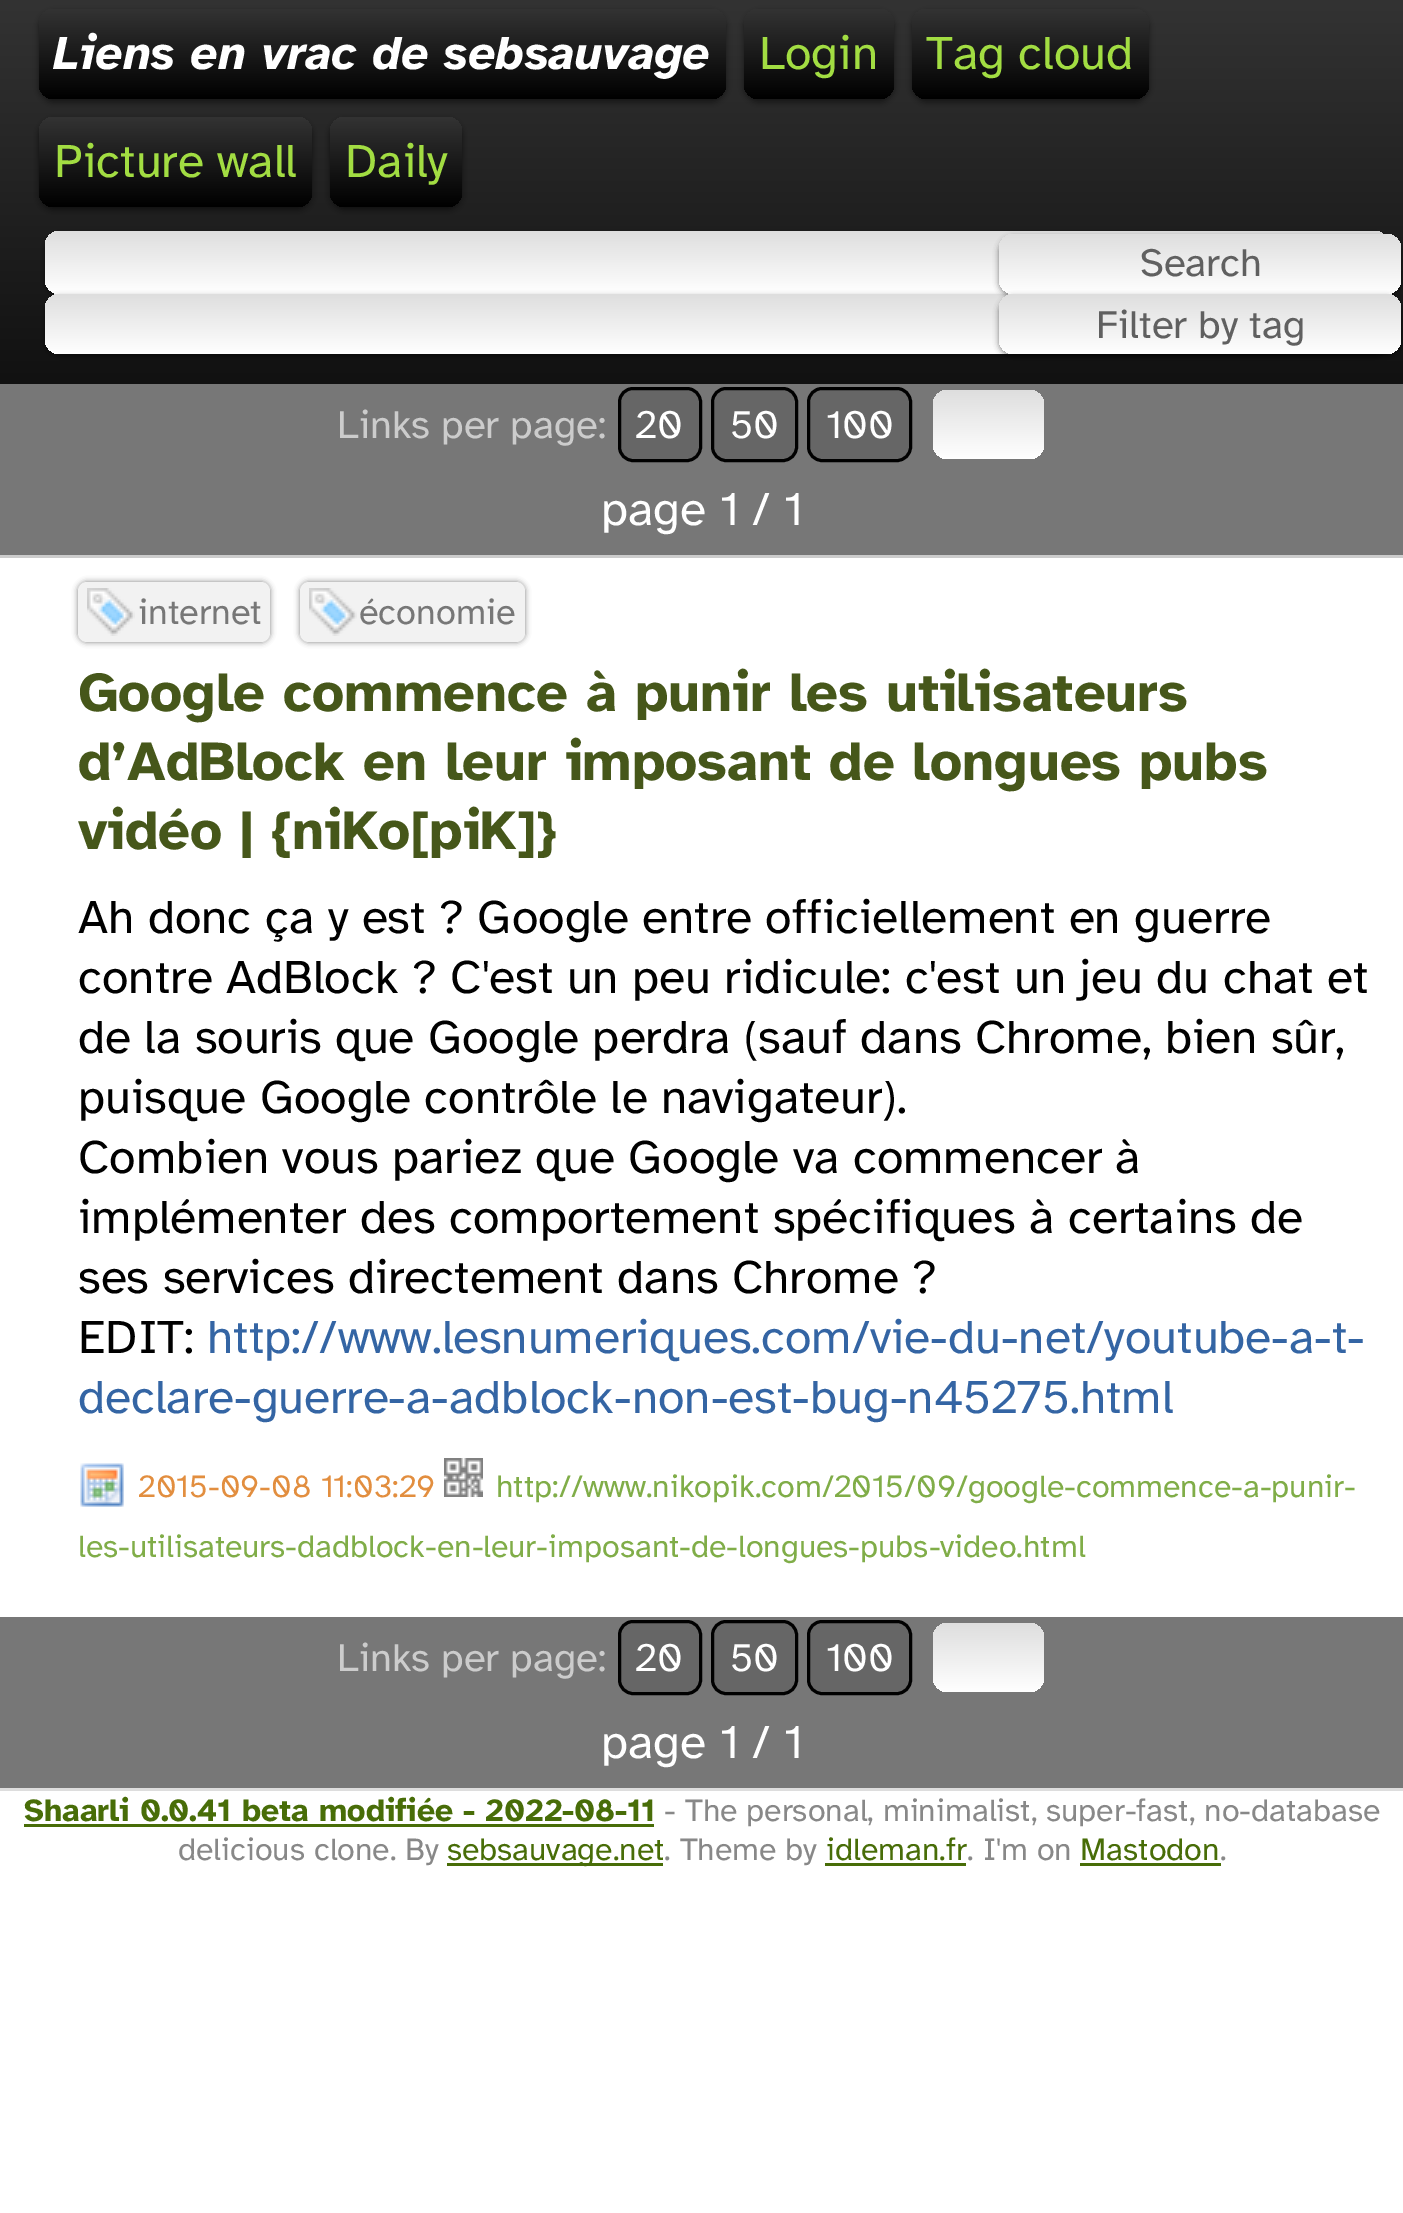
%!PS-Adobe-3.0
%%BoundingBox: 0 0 1403 2213
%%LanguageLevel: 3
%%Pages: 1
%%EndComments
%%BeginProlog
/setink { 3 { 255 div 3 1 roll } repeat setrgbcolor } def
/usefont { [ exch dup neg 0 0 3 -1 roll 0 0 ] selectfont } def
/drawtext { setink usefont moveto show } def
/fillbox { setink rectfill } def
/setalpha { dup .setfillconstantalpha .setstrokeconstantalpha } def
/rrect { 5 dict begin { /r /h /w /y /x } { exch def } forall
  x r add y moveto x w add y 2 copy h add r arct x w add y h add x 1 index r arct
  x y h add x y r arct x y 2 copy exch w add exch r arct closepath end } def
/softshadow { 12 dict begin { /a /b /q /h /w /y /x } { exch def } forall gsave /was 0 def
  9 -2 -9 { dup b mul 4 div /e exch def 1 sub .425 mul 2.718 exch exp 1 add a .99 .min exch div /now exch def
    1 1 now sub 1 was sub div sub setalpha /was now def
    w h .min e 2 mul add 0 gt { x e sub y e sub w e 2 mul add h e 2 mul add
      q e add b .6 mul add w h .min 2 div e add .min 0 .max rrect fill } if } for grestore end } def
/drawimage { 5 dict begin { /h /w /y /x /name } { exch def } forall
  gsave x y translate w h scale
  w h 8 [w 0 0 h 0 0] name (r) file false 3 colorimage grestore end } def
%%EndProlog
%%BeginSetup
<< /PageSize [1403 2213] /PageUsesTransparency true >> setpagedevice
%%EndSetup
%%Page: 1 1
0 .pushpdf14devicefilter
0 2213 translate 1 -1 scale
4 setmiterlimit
0 0 1403 2213 255 255 255 fillbox
gsave 0 0 moveto 1403 0 lineto 1403 384 lineto 0 384 lineto closepath clip newpath
<< /ShadingType 2 /ColorSpace /DeviceRGB /Coords [702 0 702 384] /Extend [true true] /Function << /FunctionType 2 /Domain [0 1] /C0 [0.2 0.2 0.2] /C1 [0.067 0.067 0.067] /N 1 >> >> shfill grestore
0 0 0 setink
39 12 687 90 15 3 0.5 softshadow
gsave 39 9 687 90 15 rrect clip newpath
<< /ShadingType 2 /ColorSpace /DeviceRGB /Coords [383 9 383 99] /Extend [true true] /Function << /FunctionType 2 /Domain [0 1] /C0 [0.2 0.2 0.2] /C1 [0 0 0] /N 1 >> >> shfill grestore
(Liens en vrac de sebsauvage) 54 69 /AtkinsonHyperlegible-BoldItalic 48 255 255 255 drawtext
0 0 0 setink
744 12 150 90 15 3 0.5 softshadow
gsave 744 9 150 90 15 rrect clip newpath
<< /ShadingType 2 /ColorSpace /DeviceRGB /Coords [819 9 819 99] /Extend [true true] /Function << /FunctionType 2 /Domain [0 1] /C0 [0.2 0.2 0.2] /C1 [0 0 0] /N 1 >> >> shfill grestore
(Login) 759 69 /AtkinsonHyperlegible-Regular 48 162 221 66 drawtext
0 0 0 setink
912 12 237 90 15 3 0.5 softshadow
gsave 912 9 237 90 15 rrect clip newpath
<< /ShadingType 2 /ColorSpace /DeviceRGB /Coords [1031 9 1031 99] /Extend [true true] /Function << /FunctionType 2 /Domain [0 1] /C0 [0.2 0.2 0.2] /C1 [0 0 0] /N 1 >> >> shfill grestore
(Tag cloud) 926 69 /AtkinsonHyperlegible-Regular 48 162 221 66 drawtext
0 0 0 setink
39 120 273 90 15 3 0.5 softshadow
gsave 39 117 273 90 15 rrect clip newpath
<< /ShadingType 2 /ColorSpace /DeviceRGB /Coords [176 117 176 207] /Extend [true true] /Function << /FunctionType 2 /Domain [0 1] /C0 [0.2 0.2 0.2] /C1 [0 0 0] /N 1 >> >> shfill grestore
(Picture wall) 54 177 /AtkinsonHyperlegible-Regular 48 162 221 66 drawtext
0 0 0 setink
330 120 132 90 15 3 0.5 softshadow
gsave 330 117 132 90 15 rrect clip newpath
<< /ShadingType 2 /ColorSpace /DeviceRGB /Coords [396 117 396 207] /Extend [true true] /Function << /FunctionType 2 /Domain [0 1] /C0 [0.2 0.2 0.2] /C1 [0 0 0] /N 1 >> >> shfill grestore
(Daily) 345 177 /AtkinsonHyperlegible-Regular 48 162 221 66 drawtext
0 0 0 setink
45 234 1344 63 15 3 0.5 softshadow
gsave 45 231 1344 63 15 rrect clip newpath
<< /ShadingType 2 /ColorSpace /DeviceRGB /Coords [717 231 717 294] /Extend [true true] /Function << /FunctionType 2 /Domain [0 1] /C0 [0.871 0.871 0.871] /C1 [1 1 1] /N 1 >> >> shfill grestore
45 297 1344 60 15 3 0.5 softshadow
gsave 45 294 1344 60 15 rrect clip newpath
<< /ShadingType 2 /ColorSpace /DeviceRGB /Coords [717 294 717 354] /Extend [true true] /Function << /FunctionType 2 /Domain [0 1] /C0 [0.871 0.871 0.871] /C1 [1 1 1] /N 1 >> >> shfill grestore
999 237 402 60 15 3 0.5 softshadow
gsave 999 234 402 60 15 rrect clip newpath
<< /ShadingType 2 /ColorSpace /DeviceRGB /Coords [1200 234 1200 294] /Extend [true true] /Function << /FunctionType 2 /Domain [0 1] /C0 [0.871 0.871 0.871] /C1 [1 1 1] /N 1 >> >> shfill grestore
(Search) 1140 276 /AtkinsonHyperlegible-Regular 40 96 96 96 drawtext
0 0 0 setink
999 297 402 60 15 3 0.5 softshadow
gsave 999 294 402 60 15 rrect clip newpath
<< /ShadingType 2 /ColorSpace /DeviceRGB /Coords [1200 294 1200 354] /Extend [true true] /Function << /FunctionType 2 /Domain [0 1] /C0 [0.871 0.871 0.871] /C1 [1 1 1] /N 1 >> >> shfill grestore
(Filter by tag) 1096 338 /AtkinsonHyperlegible-Regular 40 96 96 96 drawtext
0 384 1403 171 119 119 119 fillbox
(Links per page:) 337 438 /AtkinsonHyperlegible-Regular 40 204 204 204 drawtext
102 102 102 setink
619.5 388.5 81 72 13.5 rrect gsave fill grestore
0 0 0 setink
3 setlinewidth
stroke
(20) 635 438 /AtkinsonHyperlegible-Regular 40 255 255 255 drawtext
102 102 102 setink
712.5 388.5 84 72 13.5 rrect gsave fill grestore
0 0 0 setink
stroke
(50) 730 438 /AtkinsonHyperlegible-Regular 40 255 255 255 drawtext
102 102 102 setink
808.5 388.5 102 72 13.5 rrect gsave fill grestore
0 0 0 setink
stroke
(100) 826 438 /AtkinsonHyperlegible-Regular 40 255 255 255 drawtext
gsave 933 390 111 69 15 rrect clip newpath
<< /ShadingType 2 /ColorSpace /DeviceRGB /Coords [989 390 989 459] /Extend [true true] /Function << /FunctionType 2 /Domain [0 1] /C0 [0.871 0.871 0.871] /C1 [1 1 1] /N 1 >> >> shfill grestore
(page 1 / 1) 601 525 /AtkinsonHyperlegible-Regular 48 255 255 255 drawtext
0 555 1403 3 204 204 204 fillbox
0 0 0 setink
78 582 192 60 9 3 0.5 softshadow
242 242 242 setink
78 582 192 60 9 rrect fill
(assets/img1.rgb) 87 588 48 48 drawimage
(internet) 138 624 /AtkinsonHyperlegible-Regular 36 119 119 119 drawtext
0 0 0 setink
300 582 225 60 9 3 0.5 softshadow
242 242 242 setink
300 582 225 60 9 rrect fill
(assets/img2.rgb) 309 588 48 48 drawimage
(économie) 359 624 /AtkinsonHyperlegible-Regular 36 119 119 119 drawtext
(Google commence à punir les utilisateurs) 78 711 /AtkinsonHyperlegible-Bold 56 70 87 26 drawtext
(d’AdBlock en leur imposant de longues pubs) 78 780 /AtkinsonHyperlegible-Bold 56 70 87 26 drawtext
(vidéo | {niKo[piK]}) 78 849 /AtkinsonHyperlegible-Bold 56 70 87 26 drawtext
(Ah donc ça y est ? Google entre officiellement en guerre) 78 933 /AtkinsonHyperlegible-Regular 48 0 0 0 drawtext
(contre AdBlock ? C'est un peu ridicule: c'est un jeu du chat et) 78 993 /AtkinsonHyperlegible-Regular 48 0 0 0 drawtext
(de la souris que Google perdra \(sauf dans Chrome, bien sûr,) 78 1053 /AtkinsonHyperlegible-Regular 48 0 0 0 drawtext
(puisque Google contrôle le navigateur\).) 78 1113 /AtkinsonHyperlegible-Regular 48 0 0 0 drawtext
(Combien vous pariez que Google va commencer à) 78 1173 /AtkinsonHyperlegible-Regular 48 0 0 0 drawtext
(implémenter des comportement spécifiques à certains de) 78 1233 /AtkinsonHyperlegible-Regular 48 0 0 0 drawtext
(ses services directement dans Chrome ?) 78 1293 /AtkinsonHyperlegible-Regular 48 0 0 0 drawtext
(EDIT:) 78 1353 /AtkinsonHyperlegible-Regular 48 0 0 0 drawtext
(http://www.lesnumeriques.com/vie-du-net/youtube-a-t-) 207 1353 /AtkinsonHyperlegible-Regular 48 52 101 164 drawtext
(declare-guerre-a-adblock-non-est-bug-n45275.html) 78 1413 /AtkinsonHyperlegible-Regular 48 52 101 164 drawtext
(assets/img3.rgb) 80 1463 44 44 drawimage
(2015-09-08 11:03:29) 138 1497 /AtkinsonHyperlegible-Regular 32 226 142 63 drawtext
(assets/img4.rgb) 444 1458 39 39 drawimage
(http://www.nikopik.com/2015/09/google-commence-a-punir-) 496 1497 /AtkinsonHyperlegible-Regular 32 128 173 72 drawtext
(les-utilisateurs-dadblock-en-leur-imposant-de-longues-pubs-video.html) 78 1557 /AtkinsonHyperlegible-Regular 32 128 173 72 drawtext
0 1617 1403 171 119 119 119 fillbox
(Links per page:) 337 1671 /AtkinsonHyperlegible-Regular 40 204 204 204 drawtext
102 102 102 setink
619.5 1621.5 81 72 13.5 rrect gsave fill grestore
0 0 0 setink
stroke
(20) 635 1671 /AtkinsonHyperlegible-Regular 40 255 255 255 drawtext
102 102 102 setink
712.5 1621.5 84 72 13.5 rrect gsave fill grestore
0 0 0 setink
stroke
(50) 730 1671 /AtkinsonHyperlegible-Regular 40 255 255 255 drawtext
102 102 102 setink
808.5 1621.5 102 72 13.5 rrect gsave fill grestore
0 0 0 setink
stroke
(100) 826 1671 /AtkinsonHyperlegible-Regular 40 255 255 255 drawtext
gsave 933 1623 111 69 15 rrect clip newpath
<< /ShadingType 2 /ColorSpace /DeviceRGB /Coords [989 1623 989 1692] /Extend [true true] /Function << /FunctionType 2 /Domain [0 1] /C0 [0.871 0.871 0.871] /C1 [1 1 1] /N 1 >> >> shfill grestore
(page 1 / 1) 601 1758 /AtkinsonHyperlegible-Regular 48 255 255 255 drawtext
0 1788 1403 3 221 221 221 fillbox
(Shaarli 0.0.41 beta modifiée - 2022-08-11) 24 1821 /AtkinsonHyperlegible-Bold 32 72 109 8 drawtext
24 1824 630 3 72 109 8 fillbox
(- The personal, minimalist, super-fast, no-database) 664 1821 /AtkinsonHyperlegible-Regular 32 136 136 136 drawtext
(delicious clone. By) 178 1860 /AtkinsonHyperlegible-Regular 32 136 136 136 drawtext
447 1863 216 3 72 109 8 fillbox
(sebsauvage.net) 447 1860 /AtkinsonHyperlegible-Regular 32 72 109 8 drawtext
(. Theme by) 664 1860 /AtkinsonHyperlegible-Regular 32 136 136 136 drawtext
(idleman.fr) 826 1860 /AtkinsonHyperlegible-Regular 32 72 109 8 drawtext
825 1863 141 3 72 109 8 fillbox
(. I'm on) 967 1860 /AtkinsonHyperlegible-Regular 32 136 136 136 drawtext
(Mastodon) 1080 1860 /AtkinsonHyperlegible-Regular 32 72 109 8 drawtext
1080 1863 141 3 72 109 8 fillbox
(.) 1220 1860 /AtkinsonHyperlegible-Regular 32 136 136 136 drawtext
.poppdf14devicefilter showpage
%%EOF
